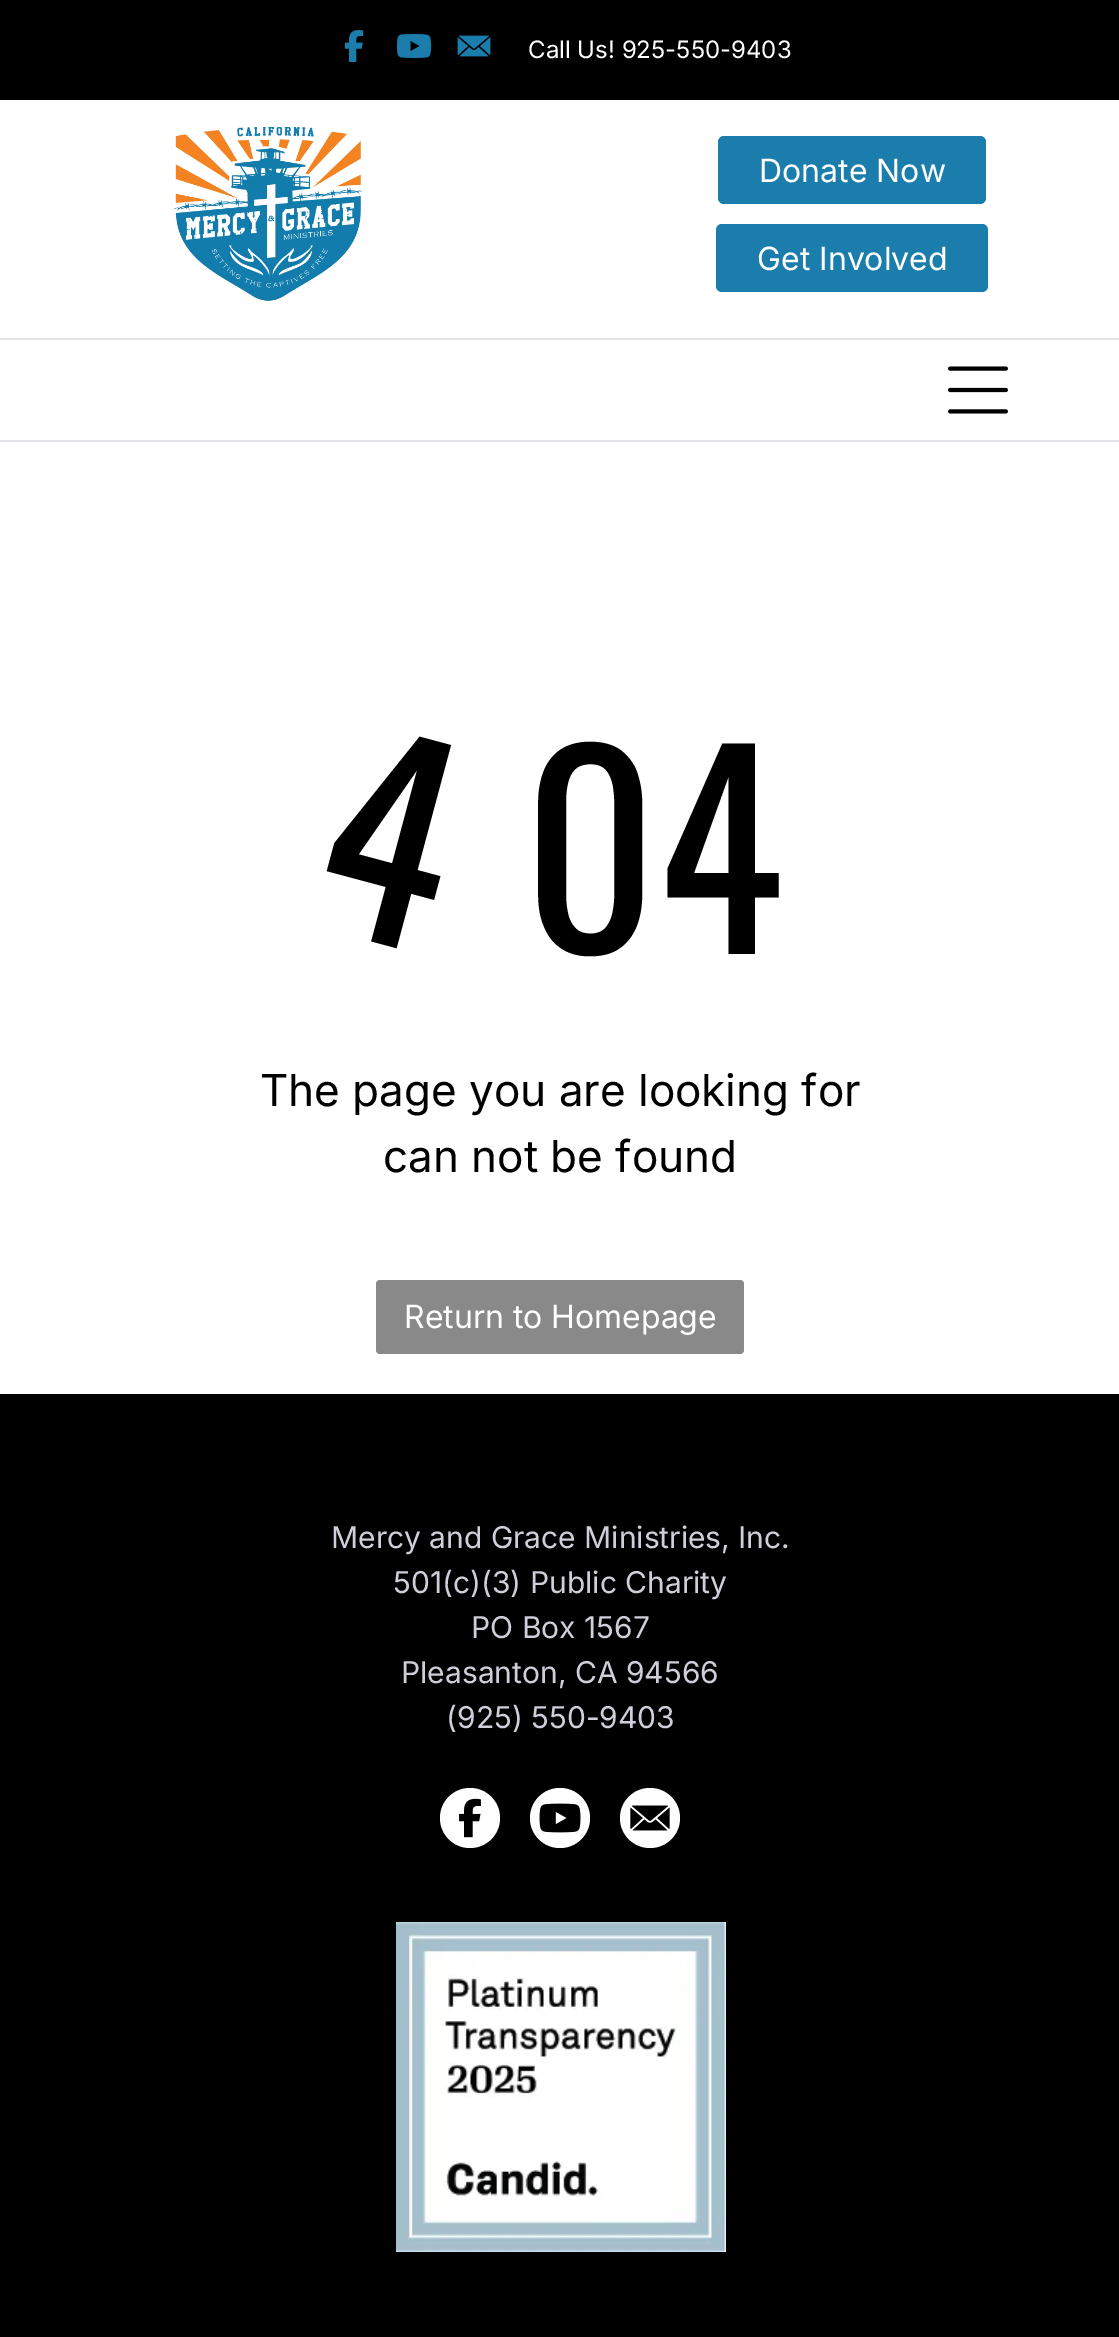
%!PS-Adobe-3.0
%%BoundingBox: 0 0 1119 2337
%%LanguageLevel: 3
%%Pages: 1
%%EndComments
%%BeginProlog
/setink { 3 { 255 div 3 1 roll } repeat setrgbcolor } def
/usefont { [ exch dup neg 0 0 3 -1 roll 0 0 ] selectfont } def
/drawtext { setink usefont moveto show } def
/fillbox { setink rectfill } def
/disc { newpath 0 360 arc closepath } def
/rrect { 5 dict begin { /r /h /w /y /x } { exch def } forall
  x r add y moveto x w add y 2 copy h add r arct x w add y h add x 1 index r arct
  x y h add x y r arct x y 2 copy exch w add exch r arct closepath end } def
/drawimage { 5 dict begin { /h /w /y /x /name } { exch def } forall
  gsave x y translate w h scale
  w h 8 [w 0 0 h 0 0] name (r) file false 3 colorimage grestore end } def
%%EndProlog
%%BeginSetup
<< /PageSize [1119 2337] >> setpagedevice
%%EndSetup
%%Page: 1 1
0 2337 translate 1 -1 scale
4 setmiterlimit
0 0 1119 2337 255 255 255 fillbox
0 0 1119 100 0 0 0 fillbox
(assets/img1.rgb) 344 30 20 32 drawimage
(assets/img2.rgb) 396 34 36 24 drawimage
(assets/img3.rgb) 457 35 34 22 drawimage
(Call Us! 925-550-9403) 528 58 /Inter-Regular 24 255 255 255 drawtext
(assets/img4.rgb) 174 127 188 174 drawimage
26 125 172 setink
718 136 268 68 6 rrect fill
(Donate Now) 759 182 /Inter-Regular 32 255 255 255 drawtext
26 125 172 setink
716 224 272 68 6 rrect fill
(Get Involved) 757 270 /Inter-Regular 32 255 255 255 drawtext
0 338 1119 2 226 228 233 fillbox
0 440 1119 2 226 228 233 fillbox
(assets/img5.rgb) 948 366 60 48 drawimage
/Oswald-Regular 260 usefont
0 0 0 setink
gsave 302 923 translate 15 rotate 0 0 moveto (4) show grestore
(04) 523 954 /Oswald-Regular 260 0 0 0 drawtext
(The page you are looking for) 260 1106 /Inter-Regular 44 0 0 0 drawtext
(can not be found) 383 1172 /Inter-Regular 44 0 0 0 drawtext
137 137 137 setink
376 1280 368 74 4 rrect fill
(Return to Homepage) 404 1328 /Inter-Regular 32 255 255 255 drawtext
0 1394 1119 943 0 0 0 fillbox
(Mercy and Grace Ministries, Inc.) 331 1548 /Inter-Regular 30 207 207 218 drawtext
(501\(c\)\(3\) Public Charity) 393 1593 /Inter-Regular 30 207 207 218 drawtext
(PO Box 1567) 471 1638 /Inter-Regular 30 207 207 218 drawtext
(Pleasanton, CA 94566) 401 1683 /Inter-Regular 30 207 207 218 drawtext
(\(925\) 550-9403) 446 1728 /Inter-Regular 30 207 207 218 drawtext
255 255 255 setink
470 1818 30 disc fill
(assets/img6.rgb) 459 1798 22 40 drawimage
560 1818 30 disc fill
(assets/img7.rgb) 539 1803 42 30 drawimage
650 1818 30 disc fill
(assets/img8.rgb) 630 1805 40 26 drawimage
(assets/img9.rgb) 396 1922 330 330 drawimage
showpage
%%EOF
